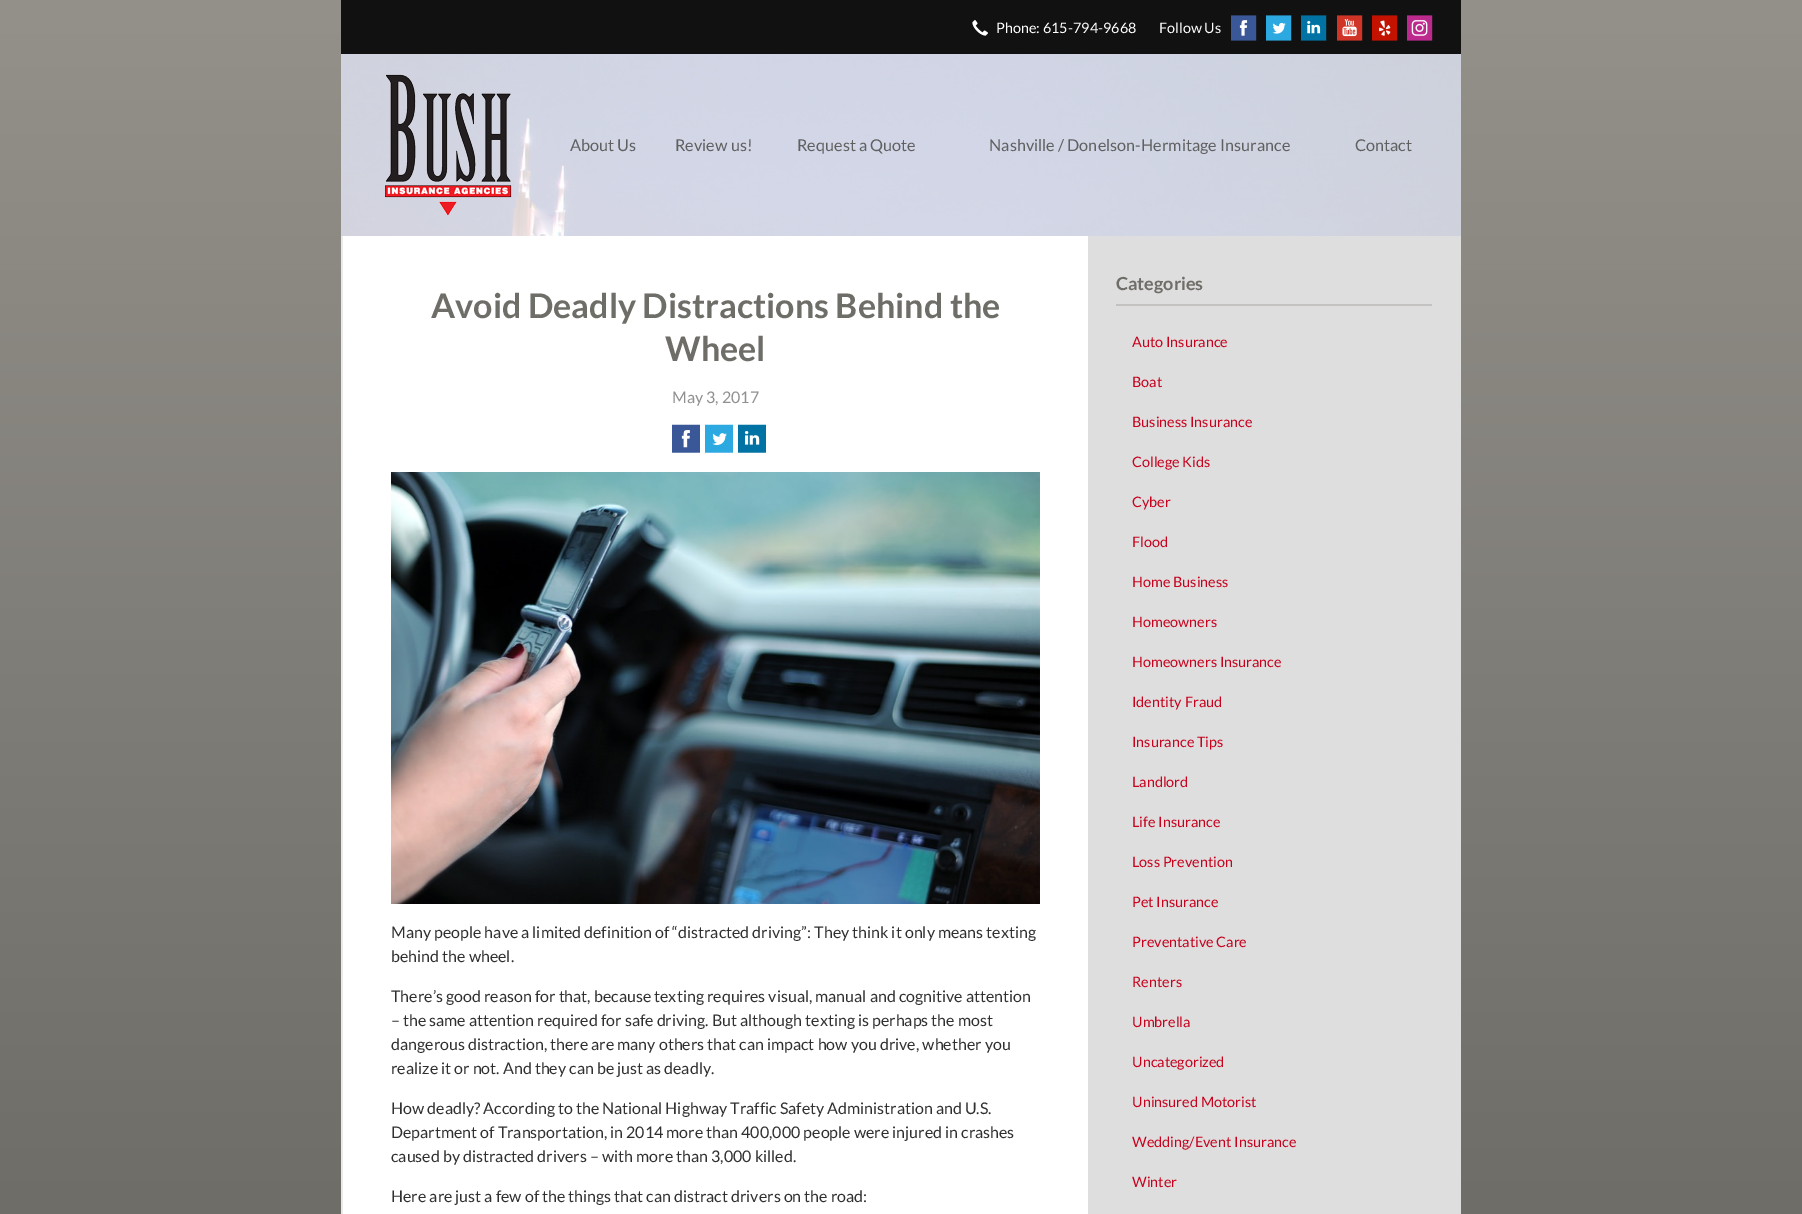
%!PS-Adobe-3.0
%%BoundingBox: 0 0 1802 1214
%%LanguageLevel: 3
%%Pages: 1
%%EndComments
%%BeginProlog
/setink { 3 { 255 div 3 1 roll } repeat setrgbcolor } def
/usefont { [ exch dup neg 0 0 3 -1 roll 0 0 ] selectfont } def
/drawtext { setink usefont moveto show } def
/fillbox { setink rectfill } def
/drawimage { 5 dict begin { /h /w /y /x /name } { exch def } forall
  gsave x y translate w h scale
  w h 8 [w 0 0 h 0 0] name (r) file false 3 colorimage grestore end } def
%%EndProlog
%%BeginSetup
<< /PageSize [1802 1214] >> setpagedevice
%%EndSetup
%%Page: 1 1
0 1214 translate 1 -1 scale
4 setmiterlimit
0 0 1802 1214 255 255 255 fillbox
gsave 0 0 moveto 1802 0 lineto 1802 1214 lineto 0 1214 lineto closepath clip newpath
<< /ShadingType 2 /ColorSpace /DeviceRGB /Coords [901 0 901 1214] /Extend [true true] /Function << /FunctionType 2 /Domain [0 1] /C0 [0.58 0.569 0.545] /C1 [0.435 0.427 0.408] /N 1 >> >> shfill grestore
341 0 1120 54 17 17 17 fillbox
(assets/img1.rgb) 972 20 16 16 drawimage
(Phone: 615-794-9668) 996 33 /Lato-Regular 14.4 255 255 255 drawtext
(Follow Us) 1159 33 /Lato-Regular 14.4 255 255 255 drawtext
1239 20 9 16 255 255 255 fillbox
(assets/img2.rgb) 1231 15 26 26 drawimage
1272 22 14 12 255 255 255 fillbox
(assets/img3.rgb) 1266 15 26 26 drawimage
1307 21 14 13 255 255 255 fillbox
(assets/img4.rgb) 1301 15 26 26 drawimage
1342 19 15 18 255 255 255 fillbox
(assets/img5.rgb) 1337 15 26 26 drawimage
1379 20 12 16 255 255 255 fillbox
(assets/img6.rgb) 1372 15 26 26 drawimage
1411 20 17 16 255 255 255 fillbox
(assets/img7.rgb) 1407 15 26 26 drawimage
(assets/img8.rgb) 341 54 1120 182 drawimage
(assets/img9.rgb) 373 74 139 146 drawimage
(About Us) 570 151 /Lato-Regular 16.25 96 96 96 drawtext
(Review us!) 675 151 /Lato-Regular 16.25 96 96 96 drawtext
(Request a Quote) 797 151 /Lato-Regular 16.25 96 96 96 drawtext
(Nashville / Donelson-Hermitage Insurance) 989 151 /Lato-Regular 16.25 96 96 96 drawtext
(Contact) 1355 151 /Lato-Regular 16.25 96 96 96 drawtext
343 236 745 978 255 255 255 fillbox
341 236 2 978 235 234 234 fillbox
(Avoid Deadly Distractions Behind the) 431 318 /Lato-Bold 34 111 109 104 drawtext
(Wheel) 665 361 /Lato-Bold 34 111 109 104 drawtext
(May 3, 2017) 672 403 /Lato-Regular 16 144 144 144 drawtext
(assets/img10.rgb) 672 424 28 29 drawimage
(assets/img11.rgb) 705 424 28 29 drawimage
(assets/img12.rgb) 738 424 28 29 drawimage
(assets/img13.rgb) 391 472 649 432 drawimage
(Many people have a limited definition of “distracted driving”: They think it only means texting) 391 938 /Lato-Regular 16 48 48 48 drawtext
(behind the wheel.) 391 962 /Lato-Regular 16 48 48 48 drawtext
(There’s good reason for that, because texting requires visual, manual and cognitive attention) 391 1002 /Lato-Regular 16 48 48 48 drawtext
(– the same attention required for safe driving. But although texting is perhaps the most) 391 1026 /Lato-Regular 16 48 48 48 drawtext
(dangerous distraction, there are many others that can impact how you drive, whether you) 391 1050 /Lato-Regular 16 48 48 48 drawtext
(realize it or not. And they can be just as deadly.) 391 1074 /Lato-Regular 16 48 48 48 drawtext
(How deadly? According to the National Highway Traffic Safety Administration and U.S.) 391 1114 /Lato-Regular 16 48 48 48 drawtext
(Department of Transportation, in 2014 more than 400,000 people were injured in crashes) 391 1138 /Lato-Regular 16 48 48 48 drawtext
(caused by distracted drivers – with more than 3,000 killed.) 391 1162 /Lato-Regular 16 48 48 48 drawtext
(Here are just a few of the things that can distract drivers on the road:) 391 1202 /Lato-Regular 16 48 48 48 drawtext
1088 236 373 978 223 222 222 fillbox
1116 304 316 2 195 194 193 fillbox
(Categories) 1116 290 /Lato-Bold 18 111 109 104 drawtext
(Auto Insurance) 1132 347 /Lato-Regular 14.4 198 2 30 drawtext
(Boat) 1132 387 /Lato-Regular 14.4 198 2 30 drawtext
(Business Insurance) 1132 427 /Lato-Regular 14.4 198 2 30 drawtext
(College Kids) 1132 467 /Lato-Regular 14.4 198 2 30 drawtext
(Cyber) 1132 507 /Lato-Regular 14.4 198 2 30 drawtext
(Flood) 1132 547 /Lato-Regular 14.4 198 2 30 drawtext
(Home Business) 1132 587 /Lato-Regular 14.4 198 2 30 drawtext
(Homeowners) 1132 627 /Lato-Regular 14.4 198 2 30 drawtext
(Homeowners Insurance) 1132 667 /Lato-Regular 14.4 198 2 30 drawtext
(Identity Fraud) 1132 707 /Lato-Regular 14.4 198 2 30 drawtext
(Insurance Tips) 1132 747 /Lato-Regular 14.4 198 2 30 drawtext
(Landlord) 1132 787 /Lato-Regular 14.4 198 2 30 drawtext
(Life Insurance) 1132 827 /Lato-Regular 14.4 198 2 30 drawtext
(Loss Prevention) 1132 867 /Lato-Regular 14.4 198 2 30 drawtext
(Pet Insurance) 1132 907 /Lato-Regular 14.4 198 2 30 drawtext
(Preventative Care) 1132 947 /Lato-Regular 14.4 198 2 30 drawtext
(Renters) 1132 987 /Lato-Regular 14.4 198 2 30 drawtext
(Umbrella) 1132 1027 /Lato-Regular 14.4 198 2 30 drawtext
(Uncategorized) 1132 1067 /Lato-Regular 14.4 198 2 30 drawtext
(Uninsured Motorist) 1132 1107 /Lato-Regular 14.4 198 2 30 drawtext
(Wedding/Event Insurance) 1132 1147 /Lato-Regular 14.4 198 2 30 drawtext
(Winter) 1132 1187 /Lato-Regular 14.4 198 2 30 drawtext
showpage
%%EOF
